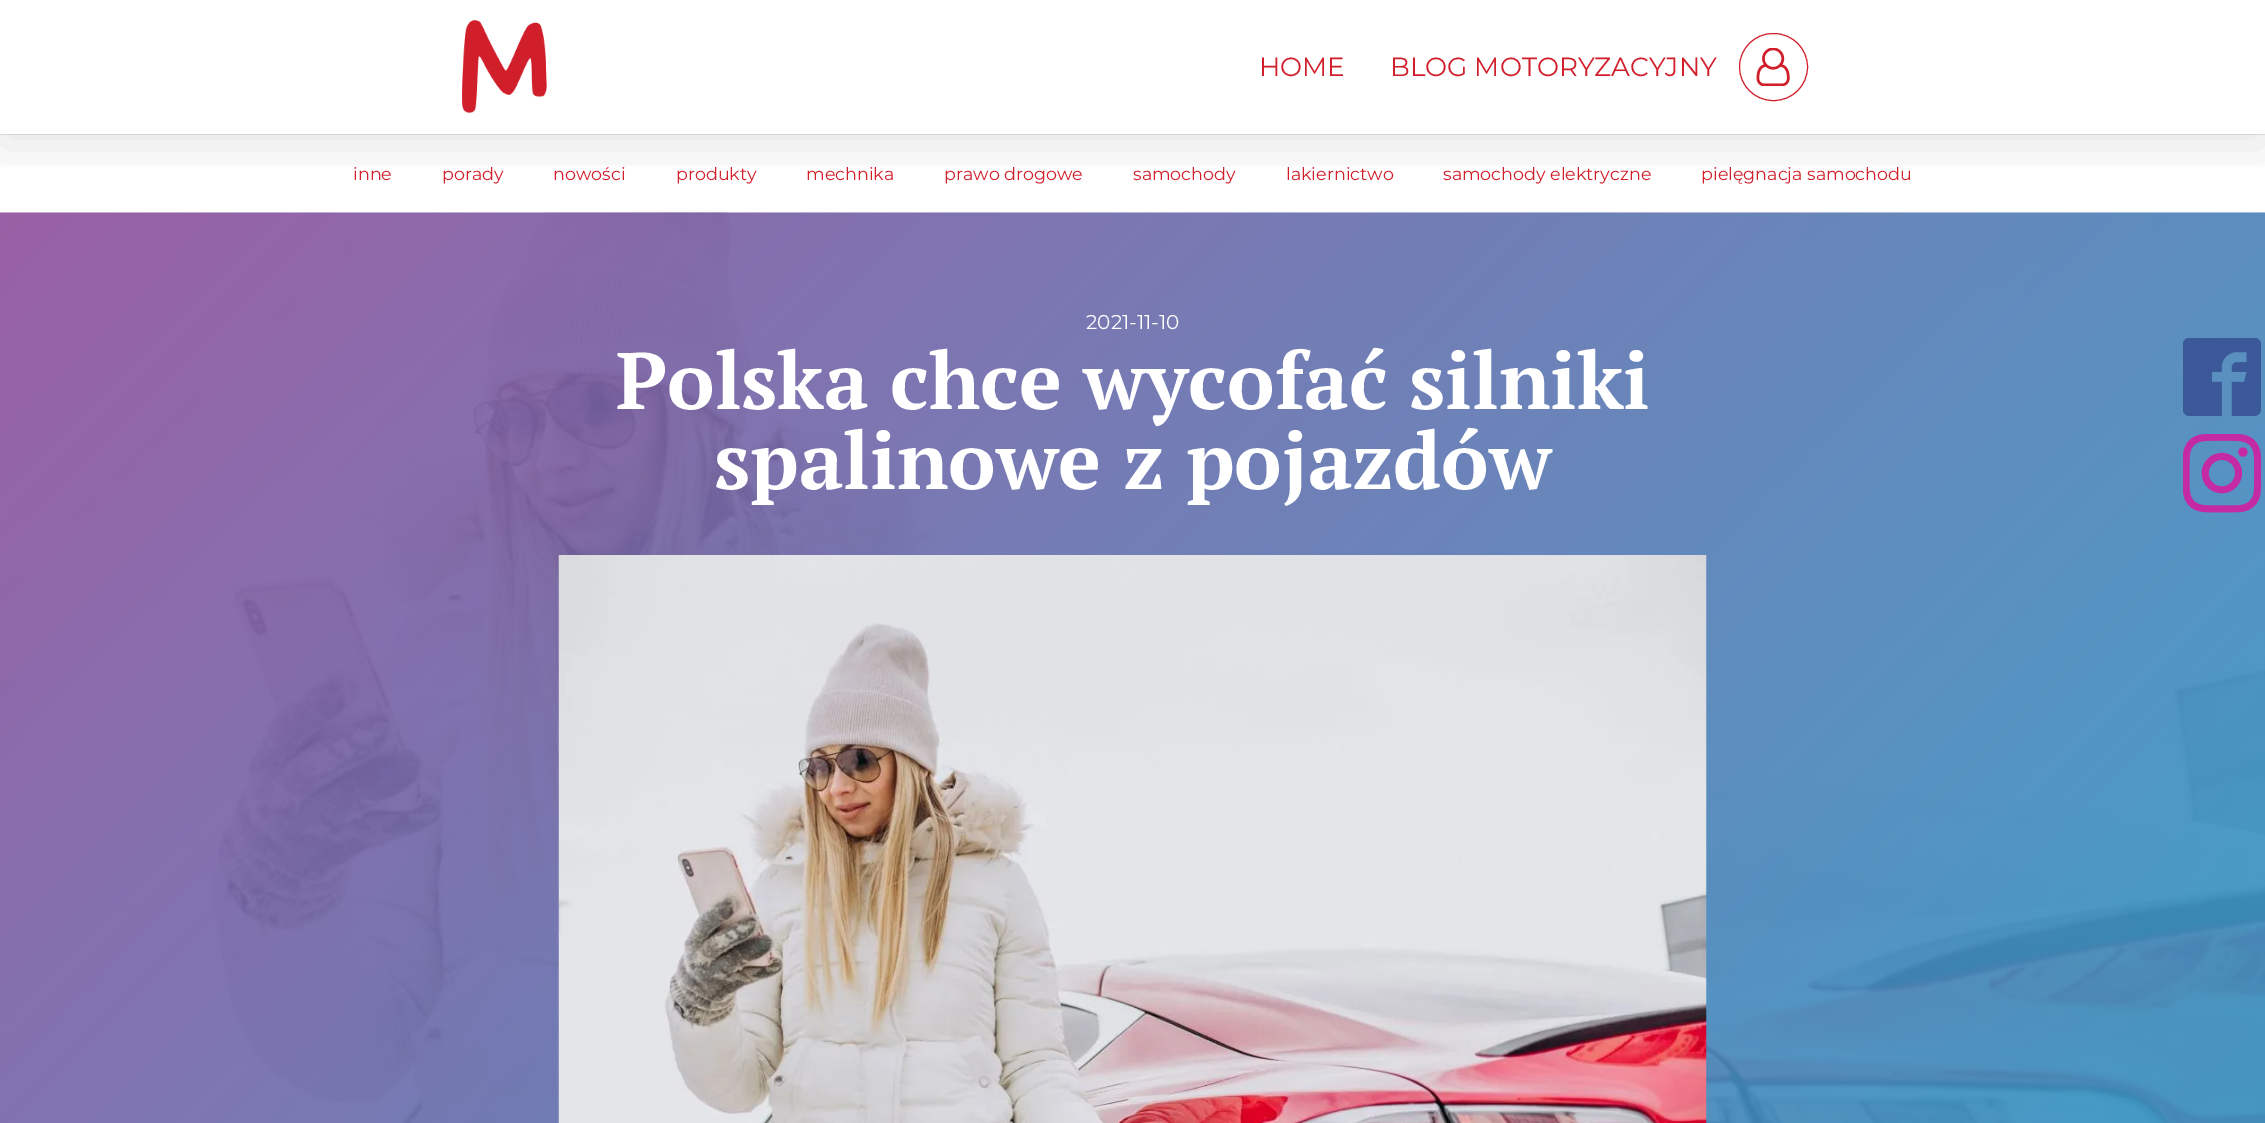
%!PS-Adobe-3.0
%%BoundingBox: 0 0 2265 1123
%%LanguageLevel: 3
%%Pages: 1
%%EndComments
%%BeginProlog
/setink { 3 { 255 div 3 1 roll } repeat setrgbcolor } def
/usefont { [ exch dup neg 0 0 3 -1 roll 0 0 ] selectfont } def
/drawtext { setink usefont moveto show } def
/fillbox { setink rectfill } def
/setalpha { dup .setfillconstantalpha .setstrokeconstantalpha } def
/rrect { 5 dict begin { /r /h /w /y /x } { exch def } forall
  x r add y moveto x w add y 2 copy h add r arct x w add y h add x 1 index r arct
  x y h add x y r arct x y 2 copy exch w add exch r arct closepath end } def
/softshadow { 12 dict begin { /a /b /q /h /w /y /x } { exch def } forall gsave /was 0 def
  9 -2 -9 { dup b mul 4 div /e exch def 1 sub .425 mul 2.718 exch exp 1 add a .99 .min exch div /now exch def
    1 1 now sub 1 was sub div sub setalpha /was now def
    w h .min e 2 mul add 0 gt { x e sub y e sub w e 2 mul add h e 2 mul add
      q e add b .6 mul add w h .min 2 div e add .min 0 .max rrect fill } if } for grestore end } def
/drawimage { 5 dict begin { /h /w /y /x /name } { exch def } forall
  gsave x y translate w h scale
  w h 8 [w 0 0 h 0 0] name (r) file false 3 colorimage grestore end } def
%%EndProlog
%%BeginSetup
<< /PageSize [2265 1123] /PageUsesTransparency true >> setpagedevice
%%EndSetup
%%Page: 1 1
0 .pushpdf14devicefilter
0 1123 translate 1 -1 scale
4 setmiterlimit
0 0 2265 1123 255 255 255 fillbox
0 134 2265 1 230 230 230 fillbox
(assets/img3.rgb) 0 212 2265 911 drawimage
gsave
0 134 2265 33 rectclip
0 0 0 setink
0 13 2265 133 0 25 0.1 softshadow
grestore
(assets/img1.rgb) 462 20 85 93 drawimage
(HOME) 1259 76 /Montserrat-Regular 26.25 209 30 43 drawtext
(BLOG MOTORYZACYJNY) 1390 76 /Montserrat-Regular 26.25 209 30 43 drawtext
1739.5 33.5 68 67 33.5 rrect stroke
(assets/img2.rgb) 1756 48 34 38 drawimage
(inne) 353 180 /Montserrat-Regular 17.5 209 30 43 drawtext
(porady) 442 180 /Montserrat-Regular 17.5 209 30 43 drawtext
(nowości) 553 180 /Montserrat-Regular 17.5 209 30 43 drawtext
(produkty) 676 180 /Montserrat-Regular 17.5 209 30 43 drawtext
(mechnika) 806 180 /Montserrat-Regular 17.5 209 30 43 drawtext
(prawo drogowe) 944 180 /Montserrat-Regular 17.5 209 30 43 drawtext
(samochody) 1133 180 /Montserrat-Regular 17.5 209 30 43 drawtext
(lakiernictwo) 1286 180 /Montserrat-Regular 17.5 209 30 43 drawtext
(samochody elektryczne) 1443 180 /Montserrat-Regular 17.5 209 30 43 drawtext
(pielęgnacja samochodu) 1701 180 /Montserrat-Regular 17.5 209 30 43 drawtext
(2021-11-10) 1086 329 /Montserrat-Regular 20 255 255 255 drawtext
(Polska chce wycofać silniki) 616 409 /PTSerif-Bold 80 255 255 255 drawtext
(spalinowe z pojazdów) 714 489 /PTSerif-Bold 80 255 255 255 drawtext
(assets/img4.rgb) 558 555 1149 568 drawimage
(assets/img5.rgb) 2183 338 78 78 drawimage
(assets/img6.rgb) 2183 434 78 79 drawimage
.poppdf14devicefilter showpage
%%EOF
